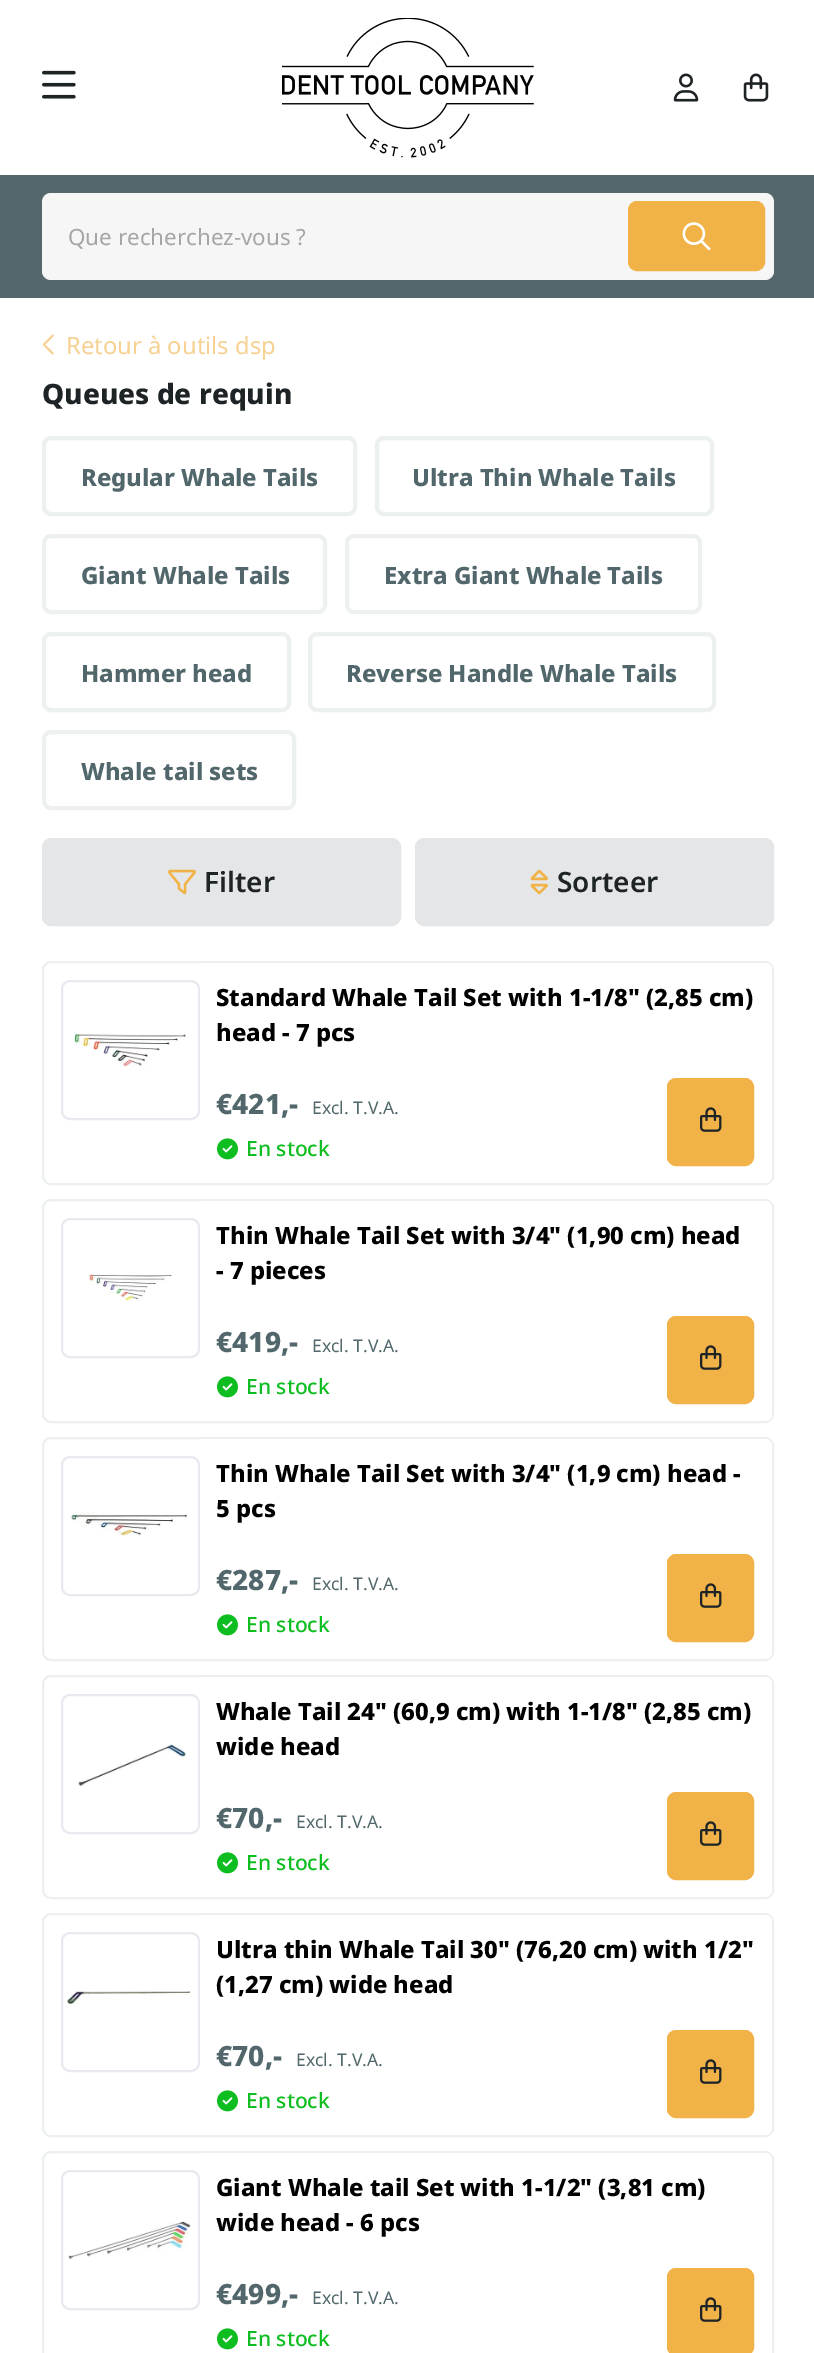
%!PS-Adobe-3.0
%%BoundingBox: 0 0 814 2353
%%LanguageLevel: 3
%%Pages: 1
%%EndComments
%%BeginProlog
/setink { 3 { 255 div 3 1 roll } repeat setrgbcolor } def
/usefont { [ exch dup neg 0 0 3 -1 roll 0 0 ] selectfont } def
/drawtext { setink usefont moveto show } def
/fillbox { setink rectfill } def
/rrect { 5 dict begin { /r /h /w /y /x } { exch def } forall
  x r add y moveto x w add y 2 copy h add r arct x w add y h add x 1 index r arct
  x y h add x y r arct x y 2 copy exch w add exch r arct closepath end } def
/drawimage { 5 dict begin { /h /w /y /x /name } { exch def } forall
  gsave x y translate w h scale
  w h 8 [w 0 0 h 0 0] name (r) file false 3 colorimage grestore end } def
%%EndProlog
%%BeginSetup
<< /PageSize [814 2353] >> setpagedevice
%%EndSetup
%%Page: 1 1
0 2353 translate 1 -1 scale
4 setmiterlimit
0 0 814 2353 255 255 255 fillbox
(assets/img1.rgb) 42 70 34 29 drawimage
(assets/img2.rgb) 282 18 252 140 drawimage
(assets/img3.rgb) 673 73 26 29 drawimage
(assets/img4.rgb) 743 73 26 29 drawimage
0 175 814 123 85 103 107 fillbox
246 246 246 setink
42 193 732 87 9 rrect fill
(Que recherchez-vous ?) 68 245 /NotoSans-Regular 22.4 166 166 166 drawtext
241 179 72 setink
629 202 135 68 8 rrect gsave fill grestore
2 setlinewidth
stroke
(assets/img5.rgb) 682 222 29 29 drawimage
(assets/img6.rgb) 42 334 12 21 drawimage
(Retour à outils dsp) 66 354 /NotoSans-Regular 23.8 247 209 145 drawtext
(Queues de requin) 42 404 /NotoSans-ExtraBold 28 30 36 38 drawtext
236 240 239 setink
4 setlinewidth
44 438 311 76 7 rrect stroke
(Regular Whale Tails) 81 486 /NotoSans-ExtraBold 23.8 81 103 107 drawtext
236 240 239 setink
377 438 335 76 7 rrect stroke
(Ultra Thin Whale Tails) 412 486 /NotoSans-ExtraBold 23.8 81 103 107 drawtext
236 240 239 setink
44 536 281 76 7 rrect stroke
(Giant Whale Tails) 81 584 /NotoSans-ExtraBold 23.8 81 103 107 drawtext
236 240 239 setink
347 536 353 76 7 rrect stroke
(Extra Giant Whale Tails) 384 584 /NotoSans-ExtraBold 23.8 81 103 107 drawtext
236 240 239 setink
44 634 245 76 7 rrect stroke
(Hammer head) 81 682 /NotoSans-ExtraBold 23.8 81 103 107 drawtext
236 240 239 setink
310 634 404 76 7 rrect stroke
(Reverse Handle Whale Tails) 346 682 /NotoSans-ExtraBold 23.8 81 103 107 drawtext
236 240 239 setink
44 732 250 76 7 rrect stroke
(Whale tail sets) 81 780 /NotoSans-ExtraBold 23.8 81 103 107 drawtext
229 230 231 setink
43 839 357 86 8 rrect gsave fill grestore
2 setlinewidth
stroke
(assets/img7.rgb) 168 869 28 26 drawimage
(Filter) 204 892 /NotoSans-SemiBold 28 30 36 38 drawtext
229 230 231 setink
416 839 357 86 8 rrect gsave fill grestore
stroke
(assets/img8.rgb) 530 869 18 26 drawimage
(Sorteer) 557 892 /NotoSans-SemiBold 28 30 36 38 drawtext
236 240 239 setink
43 962 730 222 8 rrect stroke
233 234 240 setink
62 981 137 138 8 rrect stroke
(assets/img9.rgb) 73 1033 113 34 drawimage
255 255 255 setink
200 963 moveto 765 963 lineto 769 963 772 966 772 970 curveto 772 1176 lineto 772 1180 769 1183 765 1183 curveto 200 1183 lineto closepath fill
(Standard Whale Tail Set with 1-1/8" \(2,85 cm\)) 216 1006 /NotoSans-ExtraBold 23.8 0 0 0 drawtext
(head - 7 pcs) 216 1041 /NotoSans-ExtraBold 23.8 0 0 0 drawtext
(€421,-) 216 1114 /NotoSans-ExtraBold 28 81 103 107 drawtext
(Excl. T.V.A.) 312 1114 /NotoSans-Regular 17.5 81 103 107 drawtext
(assets/img10.rgb) 217 1138 21 22 drawimage
(En stock) 246 1156 /NotoSans-Medium 21 14 189 31 drawtext
241 179 72 setink
668 1079 85 86 8 rrect gsave fill grestore
stroke
(assets/img11.rgb) 700 1107 22 25 drawimage
236 240 239 setink
43 1200 730 222 8 rrect stroke
233 234 240 setink
62 1219 137 138 8 rrect stroke
(assets/img12.rgb) 87 1274 85 28 drawimage
255 255 255 setink
200 1201 moveto 765 1201 lineto 769 1201 772 1204 772 1208 curveto 772 1414 lineto 772 1418 769 1421 765 1421 curveto 200 1421 lineto closepath fill
(Thin Whale Tail Set with 3/4" \(1,90 cm\) head) 216 1244 /NotoSans-ExtraBold 23.8 0 0 0 drawtext
(- 7 pieces) 216 1279 /NotoSans-ExtraBold 23.8 0 0 0 drawtext
(€419,-) 216 1352 /NotoSans-ExtraBold 28 81 103 107 drawtext
(Excl. T.V.A.) 312 1352 /NotoSans-Regular 17.5 81 103 107 drawtext
(assets/img10.rgb) 217 1376 21 22 drawimage
(En stock) 246 1394 /NotoSans-Medium 21 14 189 31 drawtext
241 179 72 setink
668 1317 85 86 8 rrect gsave fill grestore
stroke
(assets/img11.rgb) 700 1345 22 25 drawimage
236 240 239 setink
43 1438 730 222 8 rrect stroke
233 234 240 setink
62 1457 137 138 8 rrect stroke
(assets/img13.rgb) 70 1511 117 26 drawimage
255 255 255 setink
200 1439 moveto 765 1439 lineto 769 1439 772 1442 772 1446 curveto 772 1652 lineto 772 1656 769 1659 765 1659 curveto 200 1659 lineto closepath fill
(Thin Whale Tail Set with 3/4" \(1,9 cm\) head -) 216 1482 /NotoSans-ExtraBold 23.8 0 0 0 drawtext
(5 pcs) 216 1517 /NotoSans-ExtraBold 23.8 0 0 0 drawtext
(€287,-) 216 1590 /NotoSans-ExtraBold 28 81 103 107 drawtext
(Excl. T.V.A.) 312 1590 /NotoSans-Regular 17.5 81 103 107 drawtext
(assets/img10.rgb) 217 1614 21 22 drawimage
(En stock) 246 1632 /NotoSans-Medium 21 14 189 31 drawtext
241 179 72 setink
668 1555 85 86 8 rrect gsave fill grestore
stroke
(assets/img11.rgb) 700 1583 22 25 drawimage
236 240 239 setink
43 1676 730 222 8 rrect stroke
233 234 240 setink
62 1695 137 138 8 rrect stroke
(assets/img14.rgb) 78 1744 108 43 drawimage
255 255 255 setink
200 1677 moveto 765 1677 lineto 769 1677 772 1680 772 1684 curveto 772 1890 lineto 772 1894 769 1897 765 1897 curveto 200 1897 lineto closepath fill
(Whale Tail 24" \(60,9 cm\) with 1-1/8" \(2,85 cm\)) 216 1720 /NotoSans-ExtraBold 23.8 0 0 0 drawtext
(wide head) 216 1755 /NotoSans-ExtraBold 23.8 0 0 0 drawtext
(€70,-) 216 1828 /NotoSans-ExtraBold 28 81 103 107 drawtext
(Excl. T.V.A.) 296 1828 /NotoSans-Regular 17.5 81 103 107 drawtext
(assets/img10.rgb) 217 1852 21 22 drawimage
(En stock) 246 1870 /NotoSans-Medium 21 14 189 31 drawtext
241 179 72 setink
668 1793 85 86 8 rrect gsave fill grestore
stroke
(assets/img11.rgb) 700 1821 22 25 drawimage
236 240 239 setink
43 1914 730 222 8 rrect stroke
233 234 240 setink
62 1933 137 138 8 rrect stroke
(assets/img15.rgb) 67 1991 123 14 drawimage
255 255 255 setink
200 1915 moveto 765 1915 lineto 769 1915 772 1918 772 1922 curveto 772 2128 lineto 772 2132 769 2135 765 2135 curveto 200 2135 lineto closepath fill
(Ultra thin Whale Tail 30" \(76,20 cm\) with 1/2") 216 1958 /NotoSans-ExtraBold 23.8 0 0 0 drawtext
(\(1,27 cm\) wide head) 216 1993 /NotoSans-ExtraBold 23.8 0 0 0 drawtext
(€70,-) 216 2066 /NotoSans-ExtraBold 28 81 103 107 drawtext
(Excl. T.V.A.) 296 2066 /NotoSans-Regular 17.5 81 103 107 drawtext
(assets/img10.rgb) 217 2090 21 22 drawimage
(En stock) 246 2108 /NotoSans-Medium 21 14 189 31 drawtext
241 179 72 setink
668 2031 85 86 8 rrect gsave fill grestore
stroke
(assets/img11.rgb) 700 2059 22 25 drawimage
236 240 239 setink
43 2152 730 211 8 rrect stroke
233 234 240 setink
62 2171 137 138 8 rrect stroke
(assets/img16.rgb) 68 2221 123 39 drawimage
255 255 255 setink
200 2153 moveto 765 2153 lineto 769 2153 772 2156 772 2160 curveto 772 2353 lineto 772 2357 769 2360 765 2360 curveto 200 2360 lineto closepath fill
(Giant Whale tail Set with 1-1/2" \(3,81 cm\)) 216 2196 /NotoSans-ExtraBold 23.8 0 0 0 drawtext
(wide head - 6 pcs) 216 2231 /NotoSans-ExtraBold 23.8 0 0 0 drawtext
(€499,-) 216 2304 /NotoSans-ExtraBold 28 81 103 107 drawtext
(Excl. T.V.A.) 312 2304 /NotoSans-Regular 17.5 81 103 107 drawtext
(assets/img10.rgb) 217 2328 21 22 drawimage
(En stock) 246 2346 /NotoSans-Medium 21 14 189 31 drawtext
241 179 72 setink
668 2269 85 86 8 rrect gsave fill grestore
stroke
(assets/img11.rgb) 700 2297 22 25 drawimage
showpage
%%EOF
